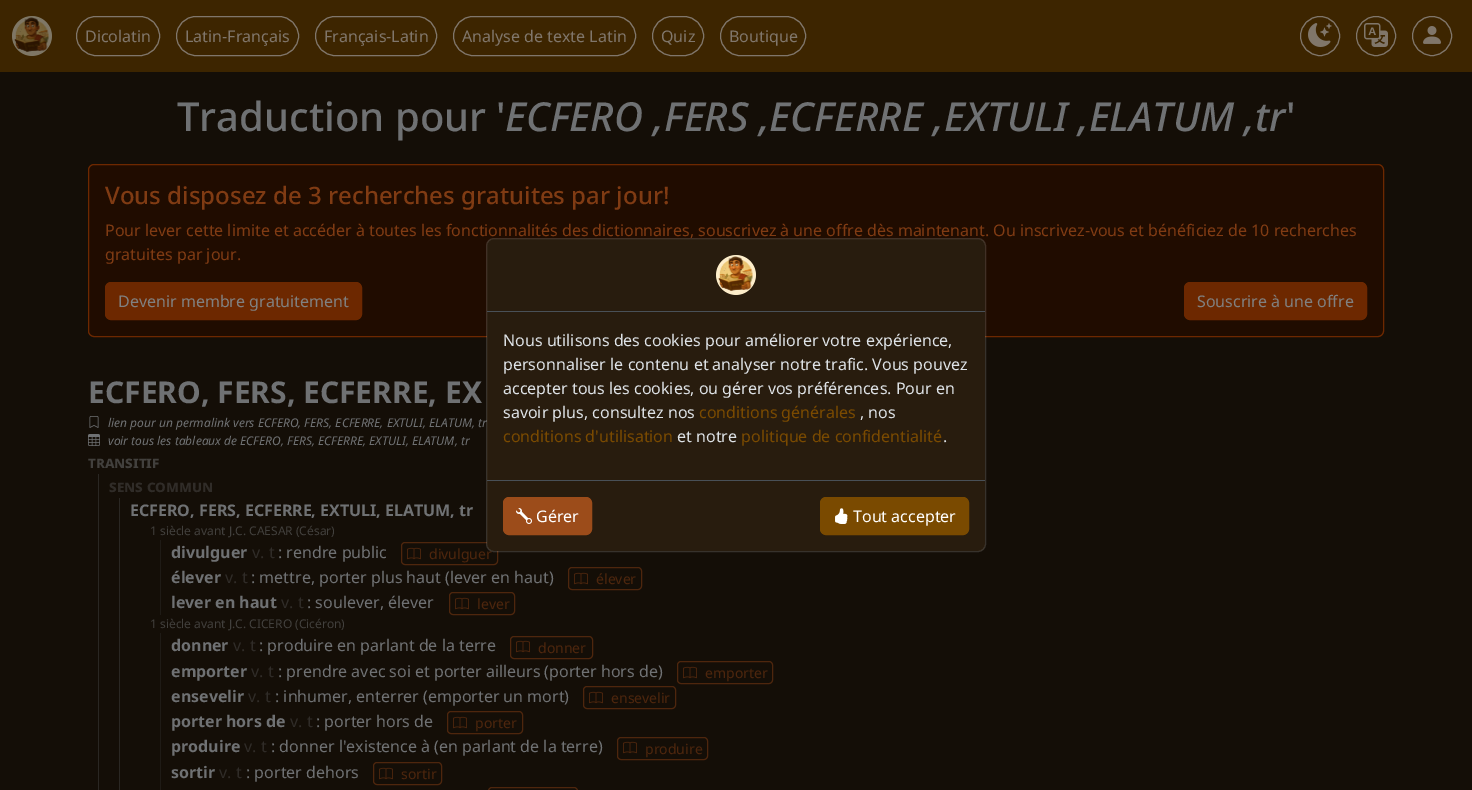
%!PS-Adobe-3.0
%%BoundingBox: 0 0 1472 790
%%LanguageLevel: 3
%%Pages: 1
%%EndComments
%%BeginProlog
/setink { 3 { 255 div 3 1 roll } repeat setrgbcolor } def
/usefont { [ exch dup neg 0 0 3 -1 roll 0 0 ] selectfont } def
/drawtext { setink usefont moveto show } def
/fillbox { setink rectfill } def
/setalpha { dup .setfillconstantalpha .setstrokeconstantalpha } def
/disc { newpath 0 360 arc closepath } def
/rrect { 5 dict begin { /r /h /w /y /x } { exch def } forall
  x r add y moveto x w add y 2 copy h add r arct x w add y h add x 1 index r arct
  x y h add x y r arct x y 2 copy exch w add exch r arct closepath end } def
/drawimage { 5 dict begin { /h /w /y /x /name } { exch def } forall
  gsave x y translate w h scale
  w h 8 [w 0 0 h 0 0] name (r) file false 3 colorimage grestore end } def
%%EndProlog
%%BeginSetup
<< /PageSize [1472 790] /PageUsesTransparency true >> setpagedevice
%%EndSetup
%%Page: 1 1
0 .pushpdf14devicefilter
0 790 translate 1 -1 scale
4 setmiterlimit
0 0 1472 790 20 14 7 fillbox
0 0 1472 72 61 37 0 fillbox
127 120 102 setink
32 36 20 disc fill
(assets/img1.rgb) 12 16 40 40 drawimage
128 118 107 setink
76.5 16.5 83 39 19.5 rrect stroke
(Dicolatin) 85 42 /NotoSans-Regular 16 128 118 107 drawtext
176.5 16.5 122 39 19.5 rrect stroke
(Latin-Français) 185 42 /NotoSans-Regular 16 128 118 107 drawtext
315.5 16.5 121 39 19.5 rrect stroke
(Français-Latin) 324 42 /NotoSans-Regular 16 128 118 107 drawtext
453.5 16.5 182 39 19.5 rrect stroke
(Analyse de texte Latin) 462 42 /NotoSans-Regular 16 128 118 107 drawtext
652.5 16.5 51 39 19.5 rrect stroke
(Quiz) 661 42 /NotoSans-Regular 16 128 118 107 drawtext
720.5 16.5 85 39 19.5 rrect stroke
(Boutique) 729 42 /NotoSans-Regular 16 128 118 107 drawtext
1320 36 19.5 disc stroke
(assets/img2.rgb) 1308 23 24 24 drawimage
1376 36 19.5 disc stroke
(assets/img3.rgb) 1364 23 24 24 drawimage
1432 36 19.5 disc stroke
(assets/img4.rgb) 1423 26 18 18 drawimage
(Traduction pour ') 177 131 /NotoSans-Medium 40 111 113 115 drawtext
(ECFERO ,FERS ,ECFERRE ,EXTULI ,ELATUM ,tr) 505 131 /NotoSans-MediumItalic 40 111 113 115 drawtext
(') 1286 131 /NotoSans-Medium 40 111 113 115 drawtext
32 12 0 setink
88.5 164.5 1295 172 5.5 rrect gsave fill grestore
109 40 0 setink
stroke
(Vous disposez de 3 recherches gratuites par jour!) 105 204 /NotoSans-Medium 24 128 59 19 drawtext
(Pour lever cette limite et accéder à toutes les fonctionnalités des dictionnaires, souscrivez à une offre dès maintenant. Ou inscrivez-vous et bénéficiez de 10 recherches) 105 236 /NotoSans-Regular 16 128 59 19 drawtext
(gratuites par jour.) 105 260 /NotoSans-Regular 16 128 59 19 drawtext
109 40 0 setink
105.5 282.5 256 37 5.5 rrect gsave fill grestore
stroke
(Devenir membre gratuitement) 118 307 /NotoSans-Regular 16 128 128 128 drawtext
109 40 0 setink
1184.5 282.5 182 37 5.5 rrect gsave fill grestore
stroke
(Souscrire à une offre) 1197 307 /NotoSans-Regular 16 128 128 128 drawtext
(ECFERO, FERS, ECFERRE, EX) 88 403 /NotoSans-Bold 30 111 113 115 drawtext
(assets/img5.rgb) 89 416 10 12 drawimage
(lien pour un permalink vers ECFERO, FERS, ECFERRE, EXTULI, ELATUM, tr) 108 427 /NotoSans-Italic 12 111 113 115 drawtext
(assets/img6.rgb) 88 434 12 12 drawimage
(voir tous les tableaux de ECFERO, FERS, ECFERRE, EXTULI, ELATUM, tr) 108 445 /NotoSans-Italic 12 111 113 115 drawtext
(transitif) 88 468 /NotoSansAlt-Bold 16 66 64 61 drawtext
98 474 1 316 42 39 35 fillbox
(sens commun) 109 492 /NotoSansAlt-Bold 16 48 44 40 drawtext
119 498 1 292 42 39 35 fillbox
(ECFERO, FERS, ECFERRE, EXTULI, ELATUM, tr) 130 516 /NotoSans-Bold 16 111 113 115 drawtext
(1 siècle avant J.C. CAESAR \(César\)) 150 535 /NotoSans-Regular 12 66 64 61 drawtext
160 540 1 75 31 27 22 fillbox
(divulguer) 171 558 /NotoSans-Bold 16 111 113 115 drawtext
(v. t) 252 558 /NotoSans-Regular 16 48 44 40 drawtext
(: rendre public) 278 558 /NotoSans-Regular 16 111 113 115 drawtext
78 38 13 setink
401.5 542.5 96 22 3.5 rrect stroke
(assets/img7.rgb) 407 547 14 13 drawimage
(divulguer) 429 559 /NotoSans-Regular 14 78 38 13 drawtext
(élever) 171 583 /NotoSans-Bold 16 111 113 115 drawtext
(v. t) 225 583 /NotoSans-Regular 16 48 44 40 drawtext
(: mettre, porter plus haut \(lever en haut\)) 251 583 /NotoSans-Regular 16 111 113 115 drawtext
78 38 13 setink
568.5 567.5 73 22 3.5 rrect stroke
(assets/img7.rgb) 574 572 14 13 drawimage
(élever) 596 584 /NotoSans-Regular 14 78 38 13 drawtext
(lever en haut) 171 608 /NotoSans-Bold 16 111 113 115 drawtext
(v. t) 281 608 /NotoSans-Regular 16 48 44 40 drawtext
(: soulever, élever) 307 608 /NotoSans-Regular 16 111 113 115 drawtext
78 38 13 setink
449.5 592.5 65 22 3.5 rrect stroke
(assets/img7.rgb) 455 597 14 13 drawimage
(lever) 477 609 /NotoSans-Regular 14 78 38 13 drawtext
(1 siècle avant J.C. CICERO \(Cicéron\)) 150 628 /NotoSans-Regular 12 66 64 61 drawtext
160 633 1 157 31 27 22 fillbox
(donner) 171 651 /NotoSans-Bold 16 111 113 115 drawtext
(v. t) 233 651 /NotoSans-Regular 16 48 44 40 drawtext
(: produire en parlant de la terre) 259 651 /NotoSans-Regular 16 111 113 115 drawtext
78 38 13 setink
510.5 636.5 82 22 3.5 rrect stroke
(assets/img7.rgb) 516 640 14 13 drawimage
(donner) 538 653 /NotoSans-Regular 14 78 38 13 drawtext
(emporter) 171 677 /NotoSans-Bold 16 111 113 115 drawtext
(v. t) 251 677 /NotoSans-Regular 16 48 44 40 drawtext
(: prendre avec soi et porter ailleurs \(porter hors de\)) 278 677 /NotoSans-Regular 16 111 113 115 drawtext
78 38 13 setink
677.5 661.5 95 22 3.5 rrect stroke
(assets/img7.rgb) 683 666 14 13 drawimage
(emporter) 705 678 /NotoSans-Regular 14 78 38 13 drawtext
(ensevelir) 171 702 /NotoSans-Bold 16 111 113 115 drawtext
(v. t) 248 702 /NotoSans-Regular 16 48 44 40 drawtext
(: inhumer, enterrer \(emporter un mort\)) 275 702 /NotoSans-Regular 16 111 113 115 drawtext
78 38 13 setink
583.5 686.5 92 22 3.5 rrect stroke
(assets/img7.rgb) 589 691 14 13 drawimage
(ensevelir) 611 703 /NotoSans-Regular 14 78 38 13 drawtext
(porter hors de) 171 727 /NotoSans-Bold 16 111 113 115 drawtext
(v. t) 290 727 /NotoSans-Regular 16 48 44 40 drawtext
(: porter hors de) 316 727 /NotoSans-Regular 16 111 113 115 drawtext
78 38 13 setink
447.5 711.5 75 22 3.5 rrect stroke
(assets/img7.rgb) 453 716 14 13 drawimage
(porter) 475 728 /NotoSans-Regular 14 78 38 13 drawtext
(produire) 171 752 /NotoSans-Bold 16 111 113 115 drawtext
(v. t) 244 752 /NotoSans-Regular 16 48 44 40 drawtext
(: donner l'existence à \(en parlant de la terre\)) 271 752 /NotoSans-Regular 16 111 113 115 drawtext
78 38 13 setink
617.5 737.5 90 22 3.5 rrect stroke
(assets/img7.rgb) 623 741 14 13 drawimage
(produire) 645 754 /NotoSans-Regular 14 78 38 13 drawtext
(sortir) 171 778 /NotoSans-Bold 16 111 113 115 drawtext
(v. t) 219 778 /NotoSans-Regular 16 48 44 40 drawtext
(: porter dehors) 246 778 /NotoSans-Regular 16 111 113 115 drawtext
78 38 13 setink
373.5 762.5 68 22 3.5 rrect stroke
(assets/img7.rgb) 379 767 14 13 drawimage
(sortir) 401 779 /NotoSans-Regular 14 78 38 13 drawtext
488.5 787.5 89 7 3.5 rrect stroke
40 28 14 setink
487 239 498 312 7 rrect fill
0.15 setalpha
255 255 255 setink
486.5 238.5 499 313 7.5 rrect stroke
1 setalpha
487 311 498 1 73 80 87 fillbox
254 239 203 setink
736 275 20 disc fill
(assets/img8.rgb) 716 255 40 40 drawimage
(Nous utilisons des cookies pour améliorer votre expérience,) 503 346 /NotoSans-Regular 16 222 226 230 drawtext
(personnaliser le contenu et analyser notre trafic. Vous pouvez) 503 370 /NotoSans-Regular 16 222 226 230 drawtext
(accepter tous les cookies, ou gérer vos préférences. Pour en) 503 394 /NotoSans-Regular 16 222 226 230 drawtext
(savoir plus, consultez nos) 503 418 /NotoSans-Regular 16 222 226 230 drawtext
(conditions générales) 699 418 /NotoSans-Regular 16 122 74 0 drawtext
(, nos) 860 418 /NotoSans-Regular 16 222 226 230 drawtext
(conditions d'utilisation) 503 442 /NotoSans-Regular 16 122 74 0 drawtext
(et notre) 677 442 /NotoSans-Regular 16 222 226 230 drawtext
(politique de confidentialité) 741 442 /NotoSans-Regular 16 122 74 0 drawtext
(.) 943 442 /NotoSans-Regular 16 222 226 230 drawtext
487 480 498 1 73 80 87 fillbox
156 76 26 setink
503.5 497.5 88 37 5.5 rrect gsave fill grestore
stroke
(assets/img9.rgb) 516 508 16 16 drawimage
(Gérer) 536 522 /NotoSans-Regular 16 255 255 255 drawtext
122 74 0 setink
820.5 497.5 148 37 5.5 rrect gsave fill grestore
stroke
(assets/img10.rgb) 835 508 13 16 drawimage
(Tout accepter) 853 522 /NotoSans-Regular 16 255 255 255 drawtext
.poppdf14devicefilter showpage
%%EOF
